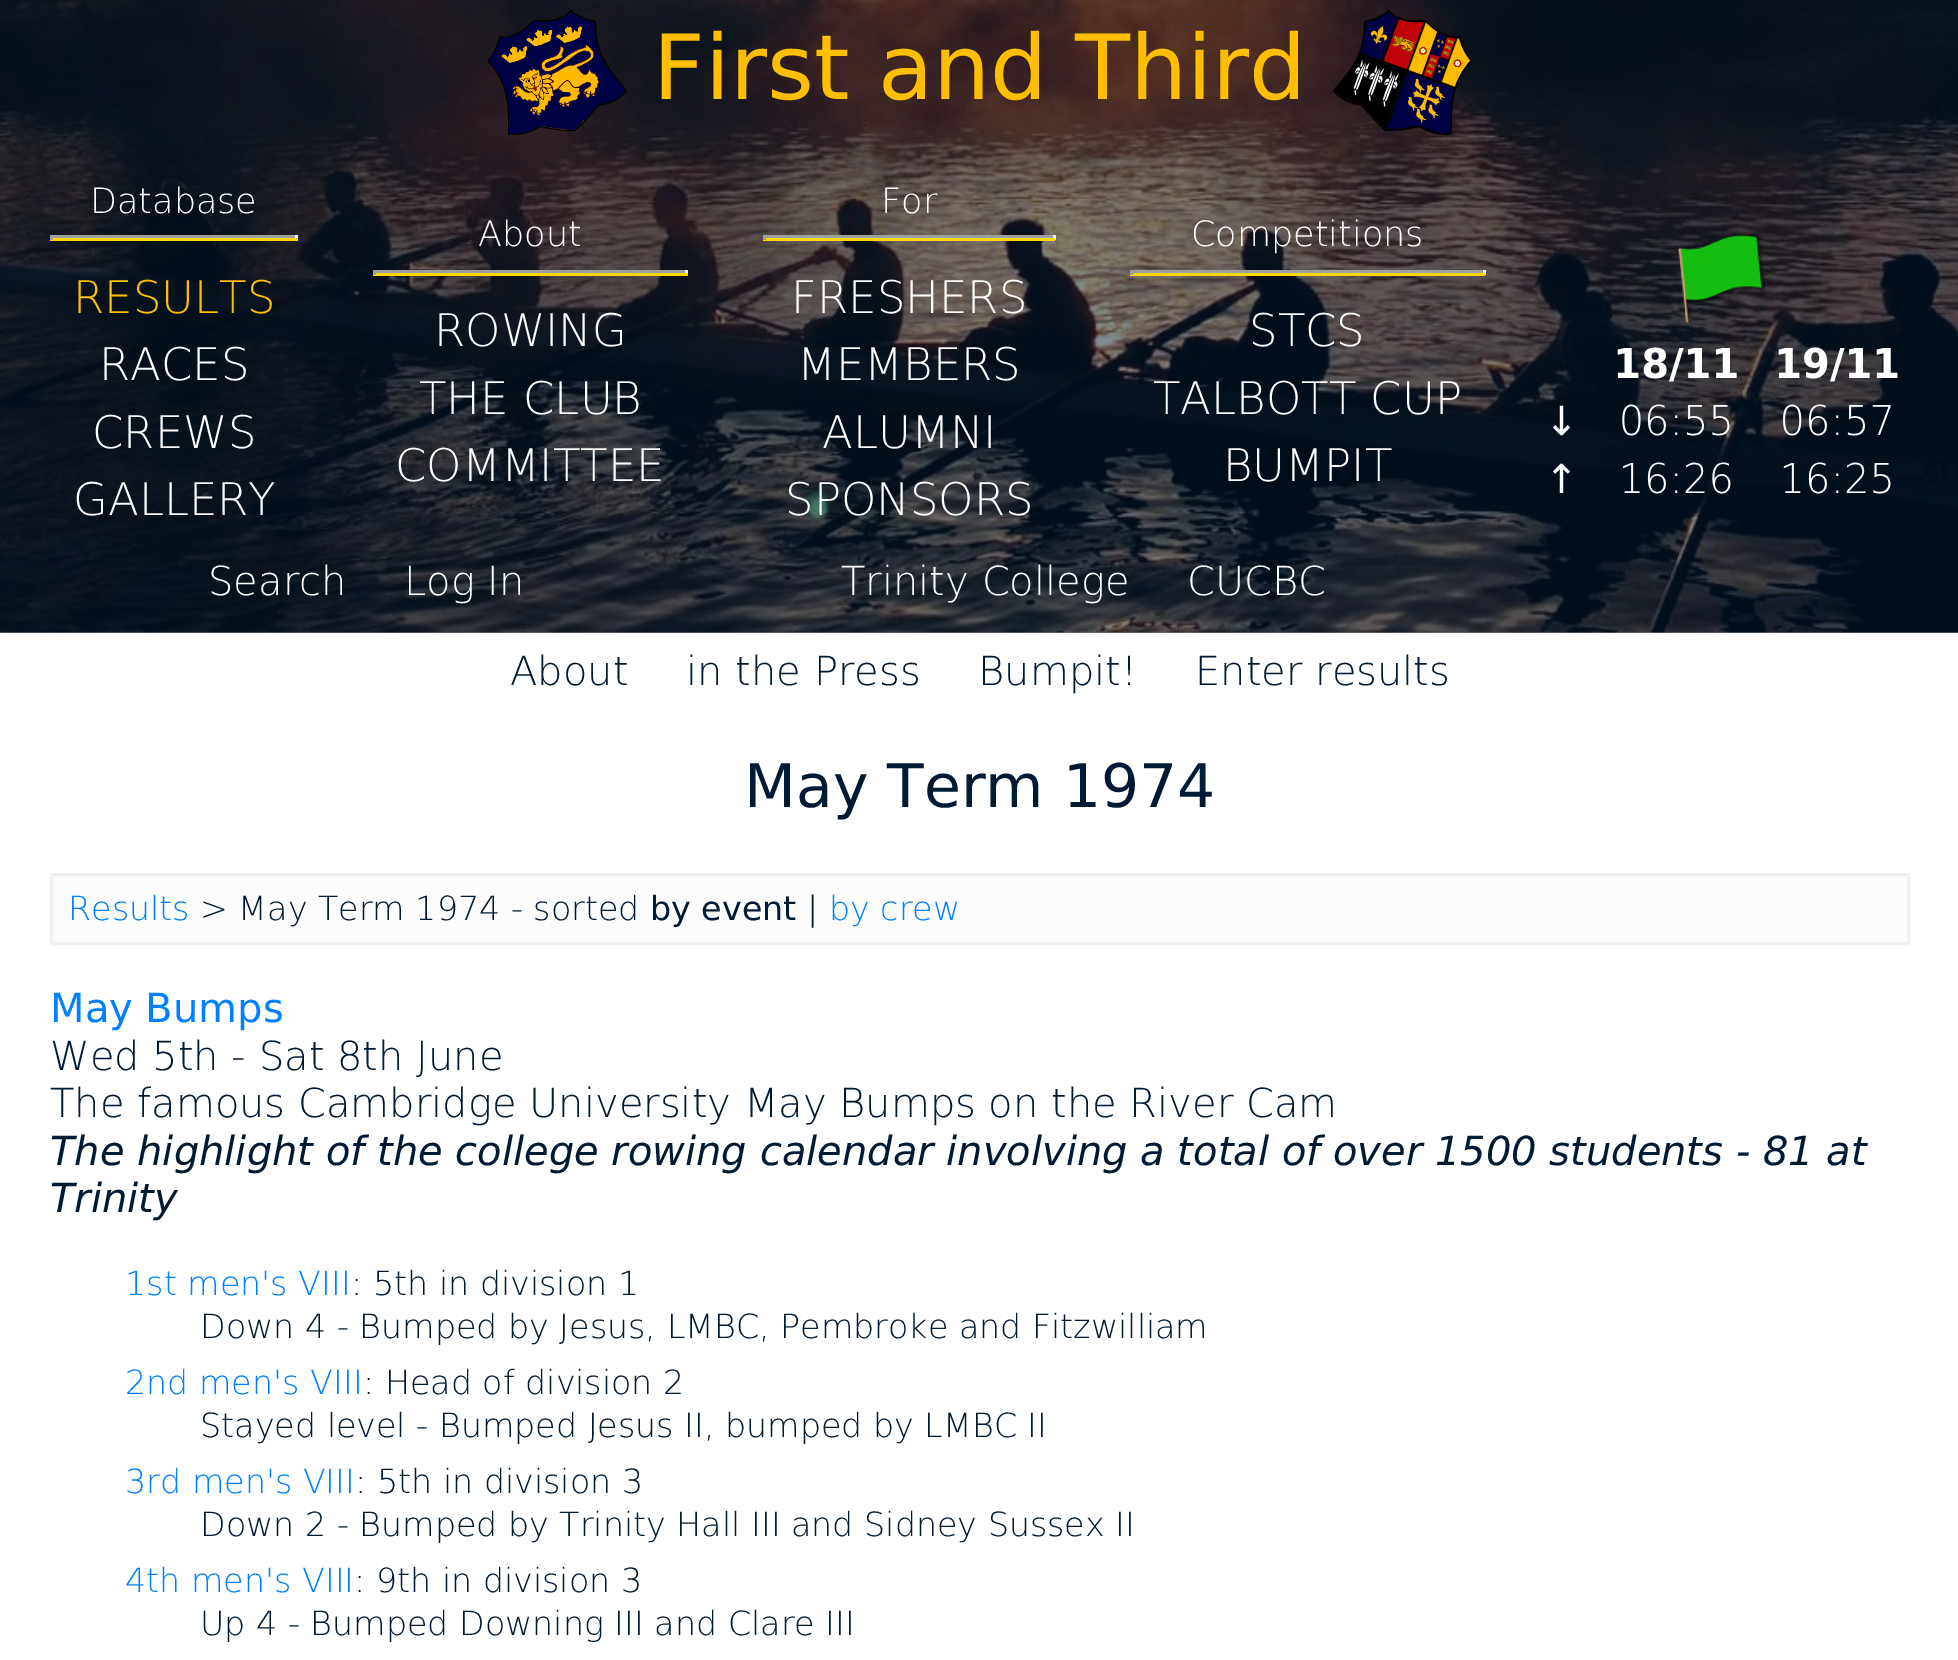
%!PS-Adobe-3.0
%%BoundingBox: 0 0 1958 1660
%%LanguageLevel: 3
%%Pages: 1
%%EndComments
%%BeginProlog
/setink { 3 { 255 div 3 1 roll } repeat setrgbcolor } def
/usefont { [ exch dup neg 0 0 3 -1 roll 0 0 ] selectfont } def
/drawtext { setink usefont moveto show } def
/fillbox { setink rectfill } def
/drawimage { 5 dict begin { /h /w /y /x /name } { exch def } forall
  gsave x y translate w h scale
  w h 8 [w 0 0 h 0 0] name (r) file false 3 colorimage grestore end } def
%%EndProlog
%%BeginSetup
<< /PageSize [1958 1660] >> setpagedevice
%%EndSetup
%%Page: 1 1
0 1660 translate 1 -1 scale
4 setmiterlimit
0 0 1958 1660 255 255 255 fillbox
0 632 1958 1 128 141 153 fillbox
(assets/img1.rgb) 0 0 1958 633 drawimage
(assets/img2.rgb) 488 10 139 125 drawimage
(First and Third) 653 99 /DejaVuSans-Regular 90 255 191 0 drawtext
(assets/img3.rgb) 1333 10 140 125 drawimage
(Database) 90 213 /DejaVuSans-ExtraLight 35 255 255 255 drawtext
50 235 248 3 159 159 159 fillbox
295 235 3 5 238 238 238 fillbox
50 238 248 3 255 215 0 fillbox
50 235 3 5 159 159 159 fillbox
(RESULTS) 73 313 /DejaVuSans-ExtraLight 45 255 191 0 drawtext
(RACES) 99 380 /DejaVuSans-ExtraLight 45 255 255 255 drawtext
(CREWS) 92 448 /DejaVuSans-ExtraLight 45 255 255 255 drawtext
(GALLERY) 73 515 /DejaVuSans-ExtraLight 45 255 255 255 drawtext
(About) 478 246 /DejaVuSans-ExtraLight 35 255 255 255 drawtext
373 270 315 3 159 159 159 fillbox
685 270 3 5 238 238 238 fillbox
373 273 315 3 255 215 0 fillbox
373 270 3 5 159 159 159 fillbox
(ROWING) 434 346 /DejaVuSans-ExtraLight 45 255 255 255 drawtext
(THE CLUB) 419 414 /DejaVuSans-ExtraLight 45 255 255 255 drawtext
(COMMITTEE) 395 481 /DejaVuSans-ExtraLight 45 255 255 255 drawtext
(For) 881 213 /DejaVuSans-ExtraLight 35 255 255 255 drawtext
763 235 292 3 159 159 159 fillbox
1053 235 3 5 238 238 238 fillbox
763 238 292 3 255 215 0 fillbox
763 235 3 5 159 159 159 fillbox
(FRESHERS) 791 313 /DejaVuSans-ExtraLight 45 255 255 255 drawtext
(MEMBERS) 797 380 /DejaVuSans-ExtraLight 45 255 255 255 drawtext
(ALUMNI) 822 448 /DejaVuSans-ExtraLight 45 255 255 255 drawtext
(SPONSORS) 785 515 /DejaVuSans-ExtraLight 45 255 255 255 drawtext
(Competitions) 1191 246 /DejaVuSans-ExtraLight 35 255 255 255 drawtext
1130 270 355 3 159 159 159 fillbox
1483 270 3 5 238 238 238 fillbox
1130 273 355 3 255 215 0 fillbox
1130 270 3 5 159 159 159 fillbox
(STCS) 1249 346 /DejaVuSans-ExtraLight 45 255 255 255 drawtext
(TALBOTT CUP) 1153 414 /DejaVuSans-ExtraLight 45 255 255 255 drawtext
(BUMPIT) 1223 481 /DejaVuSans-ExtraLight 45 255 255 255 drawtext
(Search) 208 595 /DejaVuSans-ExtraLight 40 255 255 255 drawtext
(Log In) 404 595 /DejaVuSans-ExtraLight 40 255 255 255 drawtext
(Trinity College) 841 595 /DejaVuSans-ExtraLight 40 255 255 255 drawtext
(CUCBC) 1187 595 /DejaVuSans-ExtraLight 40 255 255 255 drawtext
(assets/img4.rgb) 1678 235 87 88 drawimage
(assets/img5.rgb) 1553 347 345 147 drawimage
(About) 510 685 /DejaVuSans-ExtraLight 40 0 26 51 drawtext
(in the Press) 686 685 /DejaVuSans-ExtraLight 40 0 26 51 drawtext
(Bumpit!) 978 685 /DejaVuSans-ExtraLight 40 0 26 51 drawtext
(Enter results) 1195 685 /DejaVuSans-ExtraLight 40 0 26 51 drawtext
(May Term 1974) 744 807 /DejaVuSans-Regular 60 0 26 51 drawtext
252 252 252 setink
51.5 874.5 moveto 1908.5 874.5 lineto 1908.5 943.5 lineto 51.5 943.5 lineto closepath gsave fill grestore
240 240 240 setink
3 setlinewidth
stroke
(Results) 68 920 /DejaVuSans-ExtraLight 33.3 0 128 255 drawtext
(> May Term 1974 - sorted) 200 920 /DejaVuSans-ExtraLight 33.3 0 26 51 drawtext
(by event) 650 920 /DejaVuSans-Regular 33.3 0 26 51 drawtext
(|) 807 920 /DejaVuSans-ExtraLight 33.3 0 26 51 drawtext
(by crew) 829 920 /DejaVuSans-ExtraLight 33.3 0 128 255 drawtext
(May Bumps) 50 1022 /DejaVuSans-Regular 40 0 128 255 drawtext
(Wed 5th - Sat 8th June) 50 1070 /DejaVuSans-ExtraLight 40 0 26 51 drawtext
(The famous Cambridge University May Bumps on the River Cam) 50 1117 /DejaVuSans-ExtraLight 40 0 26 51 drawtext
(The highlight of the college rowing calendar involving a total of over 1500 students - 81 at) 50 1165 /DejaVuSans-Italic 40 0 26 51 drawtext
(Trinity) 50 1212 /DejaVuSans-Italic 40 0 26 51 drawtext
(1st men's VIII) 125 1295 /DejaVuSans-ExtraLight 33.3 0 128 255 drawtext
(: 5th in division 1) 351 1295 /DejaVuSans-ExtraLight 33.3 0 26 51 drawtext
(Down 4 - Bumped by Jesus, LMBC, Pembroke and Fitzwilliam) 200 1338 /DejaVuSans-ExtraLight 33.3 0 26 51 drawtext
(2nd men's VIII) 125 1394 /DejaVuSans-ExtraLight 33.3 0 128 255 drawtext
(: Head of division 2) 363 1394 /DejaVuSans-ExtraLight 33.3 0 26 51 drawtext
(Stayed level - Bumped Jesus II, bumped by LMBC II) 200 1437 /DejaVuSans-ExtraLight 33.3 0 26 51 drawtext
(3rd men's VIII) 125 1493 /DejaVuSans-ExtraLight 33.3 0 128 255 drawtext
(: 5th in division 3) 355 1493 /DejaVuSans-ExtraLight 33.3 0 26 51 drawtext
(Down 2 - Bumped by Trinity Hall III and Sidney Sussex II) 200 1536 /DejaVuSans-ExtraLight 33.3 0 26 51 drawtext
(4th men's VIII) 125 1592 /DejaVuSans-ExtraLight 33.3 0 128 255 drawtext
(: 9th in division 3) 354 1592 /DejaVuSans-ExtraLight 33.3 0 26 51 drawtext
(Up 4 - Bumped Downing III and Clare III) 200 1635 /DejaVuSans-ExtraLight 33.3 0 26 51 drawtext
showpage
%%EOF
